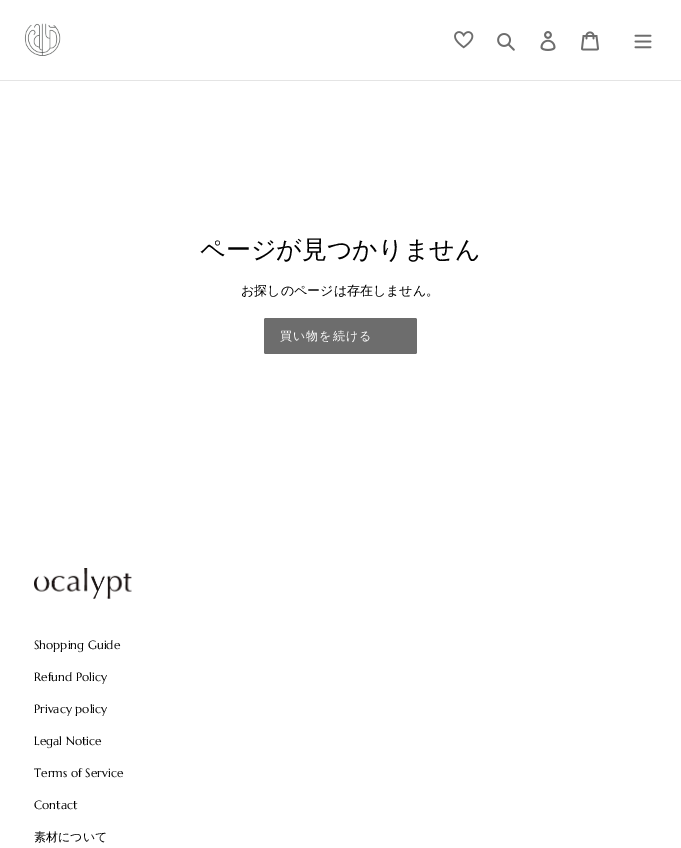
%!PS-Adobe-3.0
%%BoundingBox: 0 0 681 848
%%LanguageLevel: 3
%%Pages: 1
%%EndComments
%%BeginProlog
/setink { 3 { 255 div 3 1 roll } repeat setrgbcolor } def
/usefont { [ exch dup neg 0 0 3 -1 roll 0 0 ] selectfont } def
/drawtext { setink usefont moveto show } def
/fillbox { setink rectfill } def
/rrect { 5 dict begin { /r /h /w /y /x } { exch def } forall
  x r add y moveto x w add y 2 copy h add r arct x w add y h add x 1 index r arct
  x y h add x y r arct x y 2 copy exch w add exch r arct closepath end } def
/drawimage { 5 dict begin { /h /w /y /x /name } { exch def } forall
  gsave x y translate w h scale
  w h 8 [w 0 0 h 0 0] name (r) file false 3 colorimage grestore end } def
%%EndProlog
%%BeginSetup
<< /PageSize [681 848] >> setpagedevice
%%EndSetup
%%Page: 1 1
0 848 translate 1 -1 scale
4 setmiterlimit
0 0 681 848 255 255 255 fillbox
0 80 681 1 228 228 228 fillbox
(assets/img1.rgb) 24 23 37 33 drawimage
(assets/img2.rgb) 454 31 20 18 drawimage
(assets/img3.rgb) 497 33 18 18 drawimage
(assets/img4.rgb) 540 31 16 20 drawimage
(assets/img5.rgb) 581 31 18 20 drawimage
(assets/img6.rgb) 634 34 18 15 drawimage
(ページが見つかりません) 200 258 /WenQuanYiZenHei-Medium 25 0 0 0 drawtext
(お探しのページは存在しません。) 241 295 /WenQuanYiZenHei-Medium 13 0 0 0 drawtext
109 109 109 setink
264 318 153 36 2 rrect fill
/WenQuanYiZenHei-Medium 12 usefont
255 255 255 setink
280 340 moveto 1 0 (買い物を続ける) ashow
(assets/img7.rgb) 34 568 98 31 drawimage
(Shopping Guide) 34 649 /Marcellus-Regular 12 0 0 0 drawtext
(Refund Policy) 34 681 /Marcellus-Regular 12 0 0 0 drawtext
(Privacy policy) 34 713 /Marcellus-Regular 12 0 0 0 drawtext
(Legal Notice) 34 745 /Marcellus-Regular 12 0 0 0 drawtext
(Terms of Service) 34 777 /Marcellus-Regular 12 0 0 0 drawtext
(Contact) 34 809 /Marcellus-Regular 12 0 0 0 drawtext
(素材について) 34 841 /WenQuanYiZenHei-Medium 12 0 0 0 drawtext
showpage
%%EOF
